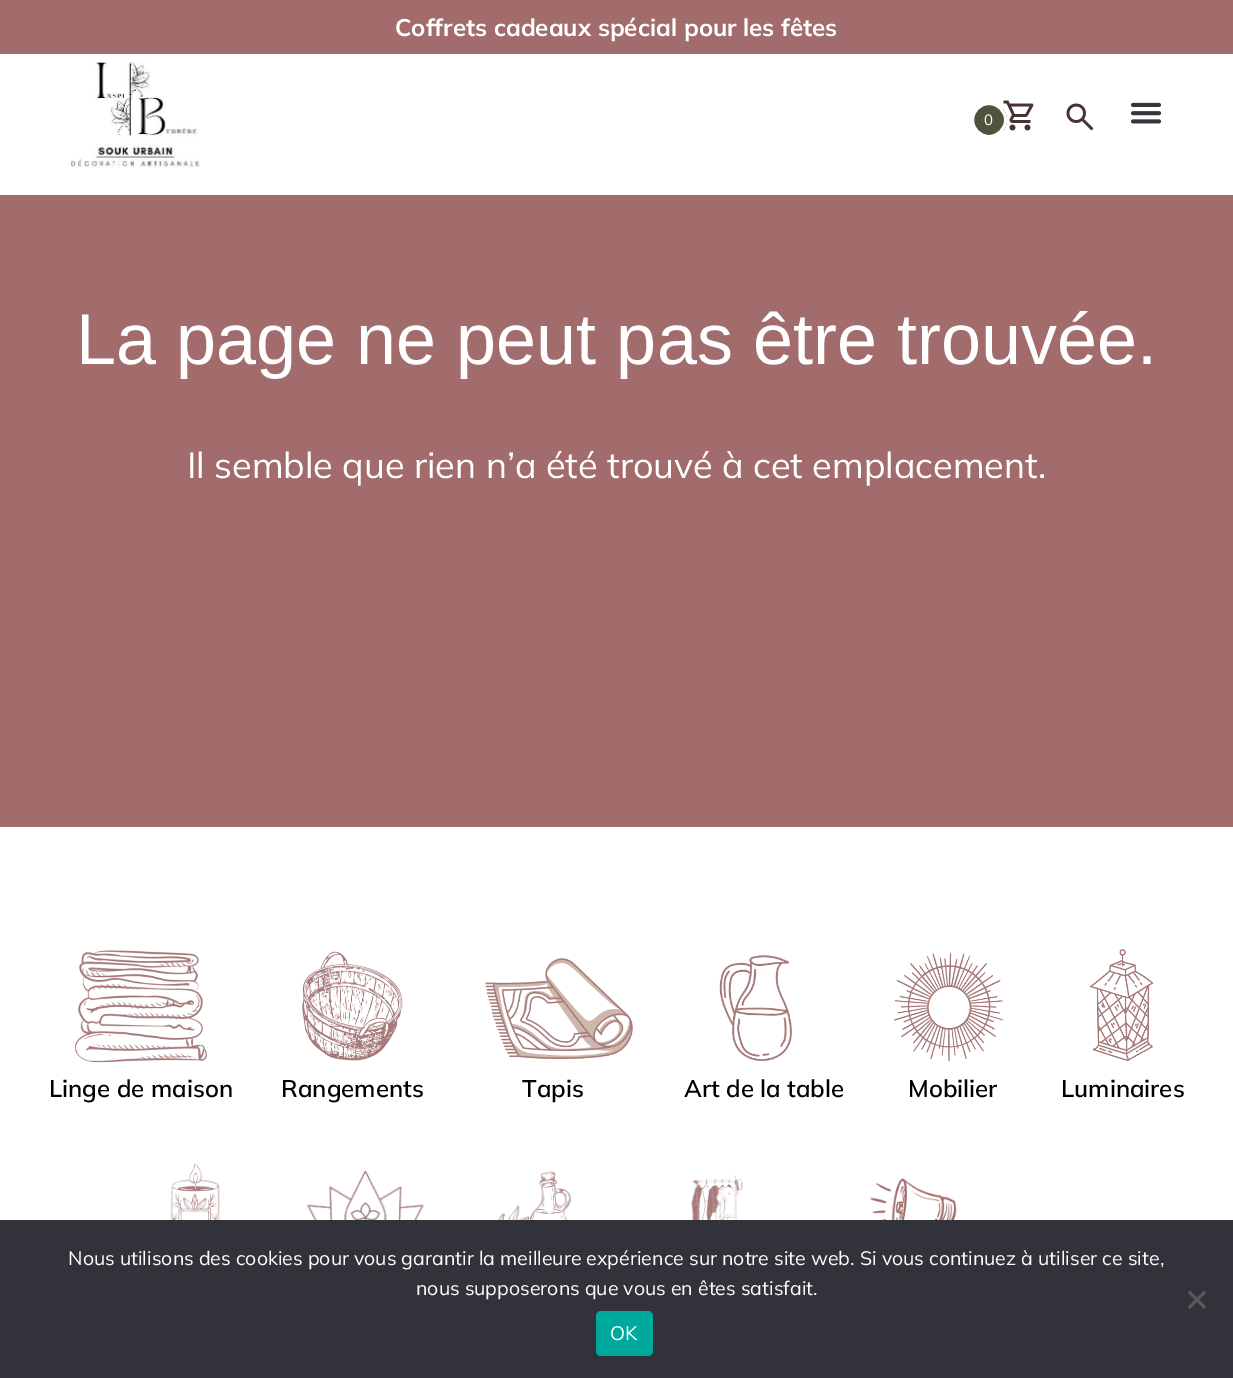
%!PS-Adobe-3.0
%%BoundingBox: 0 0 1233 1378
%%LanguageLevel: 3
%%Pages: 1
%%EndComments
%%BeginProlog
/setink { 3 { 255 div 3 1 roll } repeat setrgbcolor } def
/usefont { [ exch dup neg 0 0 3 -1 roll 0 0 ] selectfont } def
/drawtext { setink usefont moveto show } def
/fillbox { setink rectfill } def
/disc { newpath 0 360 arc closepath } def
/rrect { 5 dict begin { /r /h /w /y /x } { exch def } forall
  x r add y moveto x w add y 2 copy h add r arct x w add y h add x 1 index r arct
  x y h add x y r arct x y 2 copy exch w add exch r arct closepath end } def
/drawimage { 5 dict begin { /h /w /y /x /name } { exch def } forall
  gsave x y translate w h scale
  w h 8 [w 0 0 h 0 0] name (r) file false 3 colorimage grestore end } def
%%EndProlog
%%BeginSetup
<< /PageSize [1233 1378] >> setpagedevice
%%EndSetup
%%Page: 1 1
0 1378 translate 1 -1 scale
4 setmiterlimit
0 0 1233 1378 255 255 255 fillbox
0 0 1233 54 163 108 108 fillbox
(Coffrets cadeaux spécial pour les fêtes) 395 36 /Mulish-Bold 24 255 255 255 drawtext
(assets/img1.rgb) 71 61 129 107 drawimage
80 84 61 setink
989 120 16.5 disc gsave fill grestore
255 255 255 setink
3 setlinewidth
stroke
(0) 984 125 /Mulish-Regular 15 255 255 255 drawtext
(assets/img2.rgb) 1003 100 31 31 drawimage
(assets/img3.rgb) 1066 103 28 28 drawimage
(assets/img4.rgb) 1130 102 32 22 drawimage
0 195 1233 632 163 108 108 fillbox
(La page ne peut pas être trouvée.) 76 364 /LiberationSans-Regular 72 255 255 255 drawtext
(Il semble que rien n’a été trouvé à cet emplacement.) 187 478 /Mulish-Regular 36 255 255 255 drawtext
(assets/img5.rgb) 75 950 132 113 drawimage
(Linge de maison) 49 1097 /Mulish-SemiBold 24 0 0 0 drawtext
(assets/img6.rgb) 302 951 101 110 drawimage
(Rangements) 281 1097 /Mulish-SemiBold 24 0 0 0 drawtext
(assets/img7.rgb) 485 958 148 102 drawimage
(Tapis) 522 1097 /Mulish-SemiBold 24 0 0 0 drawtext
(assets/img8.rgb) 719 955 73 106 drawimage
(Art de la table) 684 1097 /Mulish-SemiBold 24 0 0 0 drawtext
(assets/img9.rgb) 894 953 109 109 drawimage
(Mobilier) 908 1097 /Mulish-SemiBold 24 0 0 0 drawtext
(assets/img10.rgb) 1089 949 65 112 drawimage
(Luminaires) 1061 1097 /Mulish-SemiBold 24 0 0 0 drawtext
(assets/img11.rgb) 170 1163 50 57 drawimage
(assets/img12.rgb) 307 1170 117 50 drawimage
(assets/img13.rgb) 498 1171 74 49 drawimage
(assets/img14.rgb) 691 1175 52 45 drawimage
(assets/img15.rgb) 870 1178 87 42 drawimage
0 1220 1233 158 50 50 58 fillbox
(Nous utilisons des cookies pour vous garantir la meilleure expérience sur notre site web. Si vous continuez à utiliser ce site,) 68 1265 /Mulish-Regular 19.5 255 255 255 drawtext
(nous supposerons que vous en êtes satisfait.) 416 1295 /Mulish-Regular 19.5 255 255 255 drawtext
89 89 93 setink
1204 1290.5 moveto 1206 1293 lineto 1190 1309 lineto 1188 1306.5 lineto closepath fill
1188 1293 moveto 1190 1290.5 lineto 1206 1306.5 lineto 1204 1309 lineto closepath fill
0 169 157 setink
596 1311 57 45 5 rrect fill
(OK) 610 1340 /Mulish-Regular 19.5 255 255 255 drawtext
showpage
%%EOF
